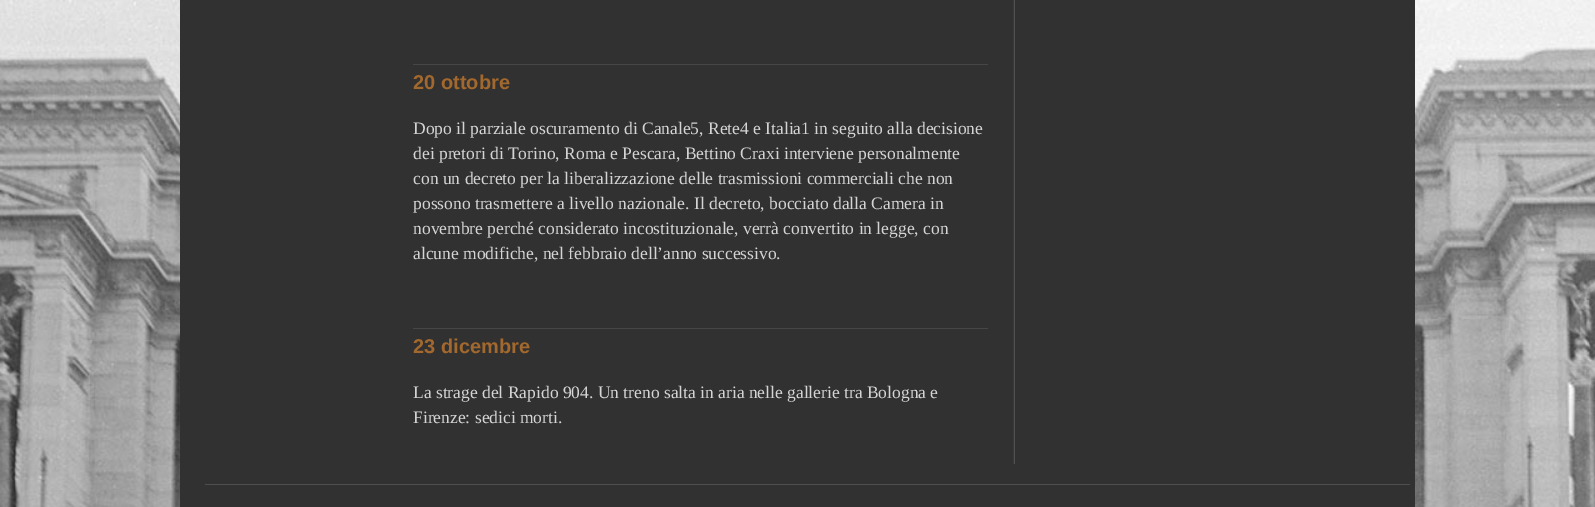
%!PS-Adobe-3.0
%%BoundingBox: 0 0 1595 507
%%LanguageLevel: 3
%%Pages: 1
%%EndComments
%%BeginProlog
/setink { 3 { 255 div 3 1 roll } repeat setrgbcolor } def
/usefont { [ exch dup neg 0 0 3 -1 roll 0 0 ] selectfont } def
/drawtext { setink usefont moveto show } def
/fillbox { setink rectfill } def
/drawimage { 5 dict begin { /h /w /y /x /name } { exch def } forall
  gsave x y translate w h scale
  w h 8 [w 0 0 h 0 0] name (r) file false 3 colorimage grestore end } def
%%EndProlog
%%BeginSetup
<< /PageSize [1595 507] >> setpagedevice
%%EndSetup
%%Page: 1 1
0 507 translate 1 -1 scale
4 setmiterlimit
0 0 1595 507 255 255 255 fillbox
(assets/img1.rgb) 0 0 1595 507 drawimage
180 0 1235 507 49 49 49 fillbox
(assets/img2.rgb) 1013 0 2 464 drawimage
413 64 575 1 70 70 70 fillbox
(20 ottobre) 413 89 /LiberationSans-Bold 20 162 104 46 drawtext
(Dopo il parziale oscuramento di Canale5, Rete4 e Italia1 in seguito alla decisione) 413 134 /LiberationSerif-Regular 17.5 212 212 212 drawtext
(dei pretori di Torino, Roma e Pescara, Bettino Craxi interviene personalmente) 413 159 /LiberationSerif-Regular 17.5 212 212 212 drawtext
(con un decreto per la liberalizzazione delle trasmissioni commerciali che non) 413 184 /LiberationSerif-Regular 17.5 212 212 212 drawtext
(possono trasmettere a livello nazionale. Il decreto, bocciato dalla Camera in) 413 209 /LiberationSerif-Regular 17.5 212 212 212 drawtext
(novembre perché considerato incostituzionale, verrà convertito in legge, con) 413 234 /LiberationSerif-Regular 17.5 212 212 212 drawtext
(alcune modifiche, nel febbraio dell’anno successivo.) 413 259 /LiberationSerif-Regular 17.5 212 212 212 drawtext
413 328 575 1 70 70 70 fillbox
(23 dicembre) 413 353 /LiberationSans-Bold 20 162 104 46 drawtext
(La strage del Rapido 904. Un treno salta in aria nelle gallerie tra Bologna e) 413 398 /LiberationSerif-Regular 17.5 212 212 212 drawtext
(Firenze: sedici morti.) 413 423 /LiberationSerif-Regular 17.5 212 212 212 drawtext
205 484 1205 1 79 79 79 fillbox
showpage
%%EOF
